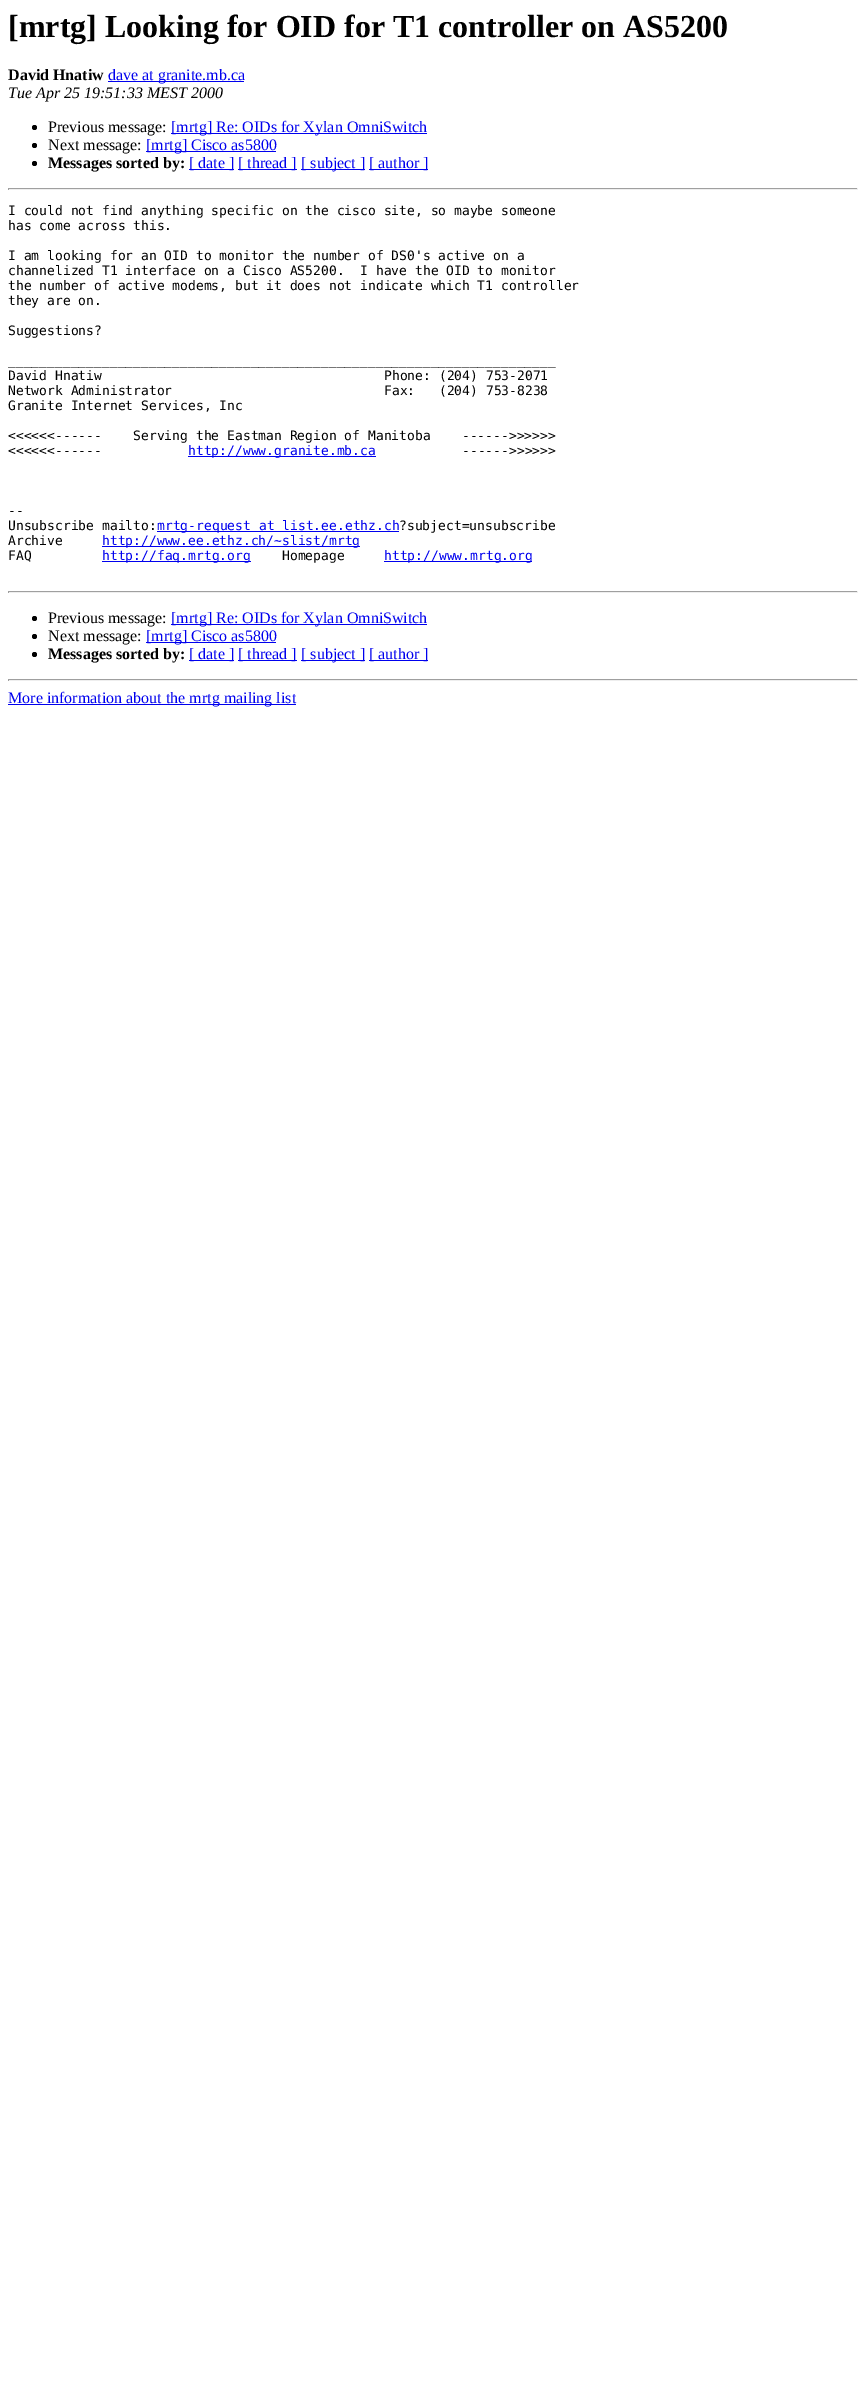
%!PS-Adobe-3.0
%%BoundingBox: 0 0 866 2393
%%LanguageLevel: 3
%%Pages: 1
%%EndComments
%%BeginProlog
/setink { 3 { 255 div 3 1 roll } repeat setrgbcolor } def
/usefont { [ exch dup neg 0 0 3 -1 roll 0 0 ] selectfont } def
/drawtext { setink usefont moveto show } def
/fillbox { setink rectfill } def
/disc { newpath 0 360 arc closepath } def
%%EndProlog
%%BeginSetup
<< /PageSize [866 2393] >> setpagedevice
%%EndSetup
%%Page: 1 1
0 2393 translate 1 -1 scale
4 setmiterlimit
0 0 866 2393 255 255 255 fillbox
([mrtg] Looking for OID for T1 controller on AS5200) 8 37 /LiberationSerif-Bold 32 0 0 0 drawtext
(David Hnatiw) 8 80 /LiberationSerif-Bold 16 0 0 0 drawtext
108 81 136 1 0 0 238 fillbox
(dave at granite.mb.ca) 108 80 /LiberationSerif-Regular 16 0 0 238 drawtext
(Tue Apr 25 19:51:33 MEST 2000) 8 98 /LiberationSerif-Italic 16 0 0 0 drawtext
34.5 127.5 2.5 disc fill
(Previous message:) 48 132 /LiberationSerif-Regular 16 0 0 0 drawtext
171 133 256 1 0 0 238 fillbox
([mrtg] Re: OIDs for Xylan OmniSwitch) 171 132 /LiberationSerif-Regular 16 0 0 238 drawtext
0 0 0 setink
34.5 145.5 2.5 disc fill
(Next message:) 48 150 /LiberationSerif-Regular 16 0 0 0 drawtext
146 151 130 1 0 0 238 fillbox
([mrtg] Cisco as5800) 146 150 /LiberationSerif-Regular 16 0 0 238 drawtext
0 0 0 setink
34.5 163.5 2.5 disc fill
(Messages sorted by:) 48 168 /LiberationSerif-Bold 16 0 0 0 drawtext
189 169 45 1 0 0 238 fillbox
([ date ]) 189 168 /LiberationSerif-Regular 16 0 0 238 drawtext
238 169 59 1 0 0 238 fillbox
([ thread ]) 238 168 /LiberationSerif-Regular 16 0 0 238 drawtext
301 169 64 1 0 0 238 fillbox
([ subject ]) 301 168 /LiberationSerif-Regular 16 0 0 238 drawtext
369 169 59 1 0 0 238 fillbox
([ author ]) 369 168 /LiberationSerif-Regular 16 0 0 238 drawtext
8 188 850 1 159 159 159 fillbox
857 188 1 2 238 238 238 fillbox
8 189 850 1 238 238 238 fillbox
8 188 1 2 159 159 159 fillbox
(I could not find anything specific on the cisco site, so maybe someone) 8 215 /DejaVuSansMono-Regular 13 0 0 0 drawtext
(has come across this.) 8 230 /DejaVuSansMono-Regular 13 0 0 0 drawtext
(I am looking for an OID to monitor the number of DS0's active on a) 8 260 /DejaVuSansMono-Regular 13 0 0 0 drawtext
(channelized T1 interface on a Cisco AS5200.  I have the OID to monitor) 8 275 /DejaVuSansMono-Regular 13 0 0 0 drawtext
(the number of active modems, but it does not indicate which T1 controller) 8 290 /DejaVuSansMono-Regular 13 0 0 0 drawtext
(they are on.) 8 305 /DejaVuSansMono-Regular 13 0 0 0 drawtext
(Suggestions?) 8 335 /DejaVuSansMono-Regular 13 0 0 0 drawtext
(______________________________________________________________________) 8 365 /DejaVuSansMono-Regular 13 0 0 0 drawtext
(David Hnatiw) 8 380 /DejaVuSansMono-Regular 13 0 0 0 drawtext
(Phone: \(204\) 753-2071) 384 380 /DejaVuSansMono-Regular 13 0 0 0 drawtext
(Network Administrator) 8 395 /DejaVuSansMono-Regular 13 0 0 0 drawtext
(Fax:   \(204\) 753-8238) 384 395 /DejaVuSansMono-Regular 13 0 0 0 drawtext
(Granite Internet Services, Inc) 8 410 /DejaVuSansMono-Regular 13 0 0 0 drawtext
(<<<<<<------    Serving the Eastman Region of Manitoba    ------>>>>>>) 8 440 /DejaVuSansMono-Regular 13 0 0 0 drawtext
(<<<<<<------) 8 455 /DejaVuSansMono-Regular 13 0 0 0 drawtext
188 456 188 1 0 0 238 fillbox
(http://www.granite.mb.ca) 188 455 /DejaVuSansMono-Regular 13 0 0 238 drawtext
(------>>>>>>) 462 455 /DejaVuSansMono-Regular 13 0 0 0 drawtext
(--) 8 515 /DejaVuSansMono-Regular 13 0 0 0 drawtext
(Unsubscribe mailto:) 8 530 /DejaVuSansMono-Regular 13 0 0 0 drawtext
157 531 242 1 0 0 238 fillbox
(mrtg-request at list.ee.ethz.ch) 157 530 /DejaVuSansMono-Regular 13 0 0 238 drawtext
(?subject=unsubscribe) 399 530 /DejaVuSansMono-Regular 13 0 0 0 drawtext
(Archive) 8 545 /DejaVuSansMono-Regular 13 0 0 0 drawtext
102 546 258 1 0 0 238 fillbox
(http://www.ee.ethz.ch/~slist/mrtg) 102 545 /DejaVuSansMono-Regular 13 0 0 238 drawtext
(FAQ) 8 560 /DejaVuSansMono-Regular 13 0 0 0 drawtext
102 561 149 1 0 0 238 fillbox
(http://faq.mrtg.org) 102 560 /DejaVuSansMono-Regular 13 0 0 238 drawtext
(Homepage) 282 560 /DejaVuSansMono-Regular 13 0 0 0 drawtext
384 561 148 1 0 0 238 fillbox
(http://www.mrtg.org) 384 560 /DejaVuSansMono-Regular 13 0 0 238 drawtext
8 591 850 1 159 159 159 fillbox
857 591 1 2 238 238 238 fillbox
8 592 850 1 238 238 238 fillbox
8 591 1 2 159 159 159 fillbox
0 0 0 setink
34.5 618.5 2.5 disc fill
(Previous message:) 48 623 /LiberationSerif-Regular 16 0 0 0 drawtext
171 624 256 1 0 0 238 fillbox
([mrtg] Re: OIDs for Xylan OmniSwitch) 171 623 /LiberationSerif-Regular 16 0 0 238 drawtext
0 0 0 setink
34.5 636.5 2.5 disc fill
(Next message:) 48 641 /LiberationSerif-Regular 16 0 0 0 drawtext
146 642 130 1 0 0 238 fillbox
([mrtg] Cisco as5800) 146 641 /LiberationSerif-Regular 16 0 0 238 drawtext
0 0 0 setink
34.5 654.5 2.5 disc fill
(Messages sorted by:) 48 659 /LiberationSerif-Bold 16 0 0 0 drawtext
189 660 45 1 0 0 238 fillbox
([ date ]) 189 659 /LiberationSerif-Regular 16 0 0 238 drawtext
238 660 59 1 0 0 238 fillbox
([ thread ]) 238 659 /LiberationSerif-Regular 16 0 0 238 drawtext
301 660 64 1 0 0 238 fillbox
([ subject ]) 301 659 /LiberationSerif-Regular 16 0 0 238 drawtext
369 660 59 1 0 0 238 fillbox
([ author ]) 369 659 /LiberationSerif-Regular 16 0 0 238 drawtext
8 679 850 1 159 159 159 fillbox
857 679 1 2 238 238 238 fillbox
8 680 850 1 238 238 238 fillbox
8 679 1 2 159 159 159 fillbox
8 704 288 1 0 0 238 fillbox
(More information about the mrtg mailing list) 8 703 /LiberationSerif-Regular 16 0 0 238 drawtext
showpage
%%EOF
